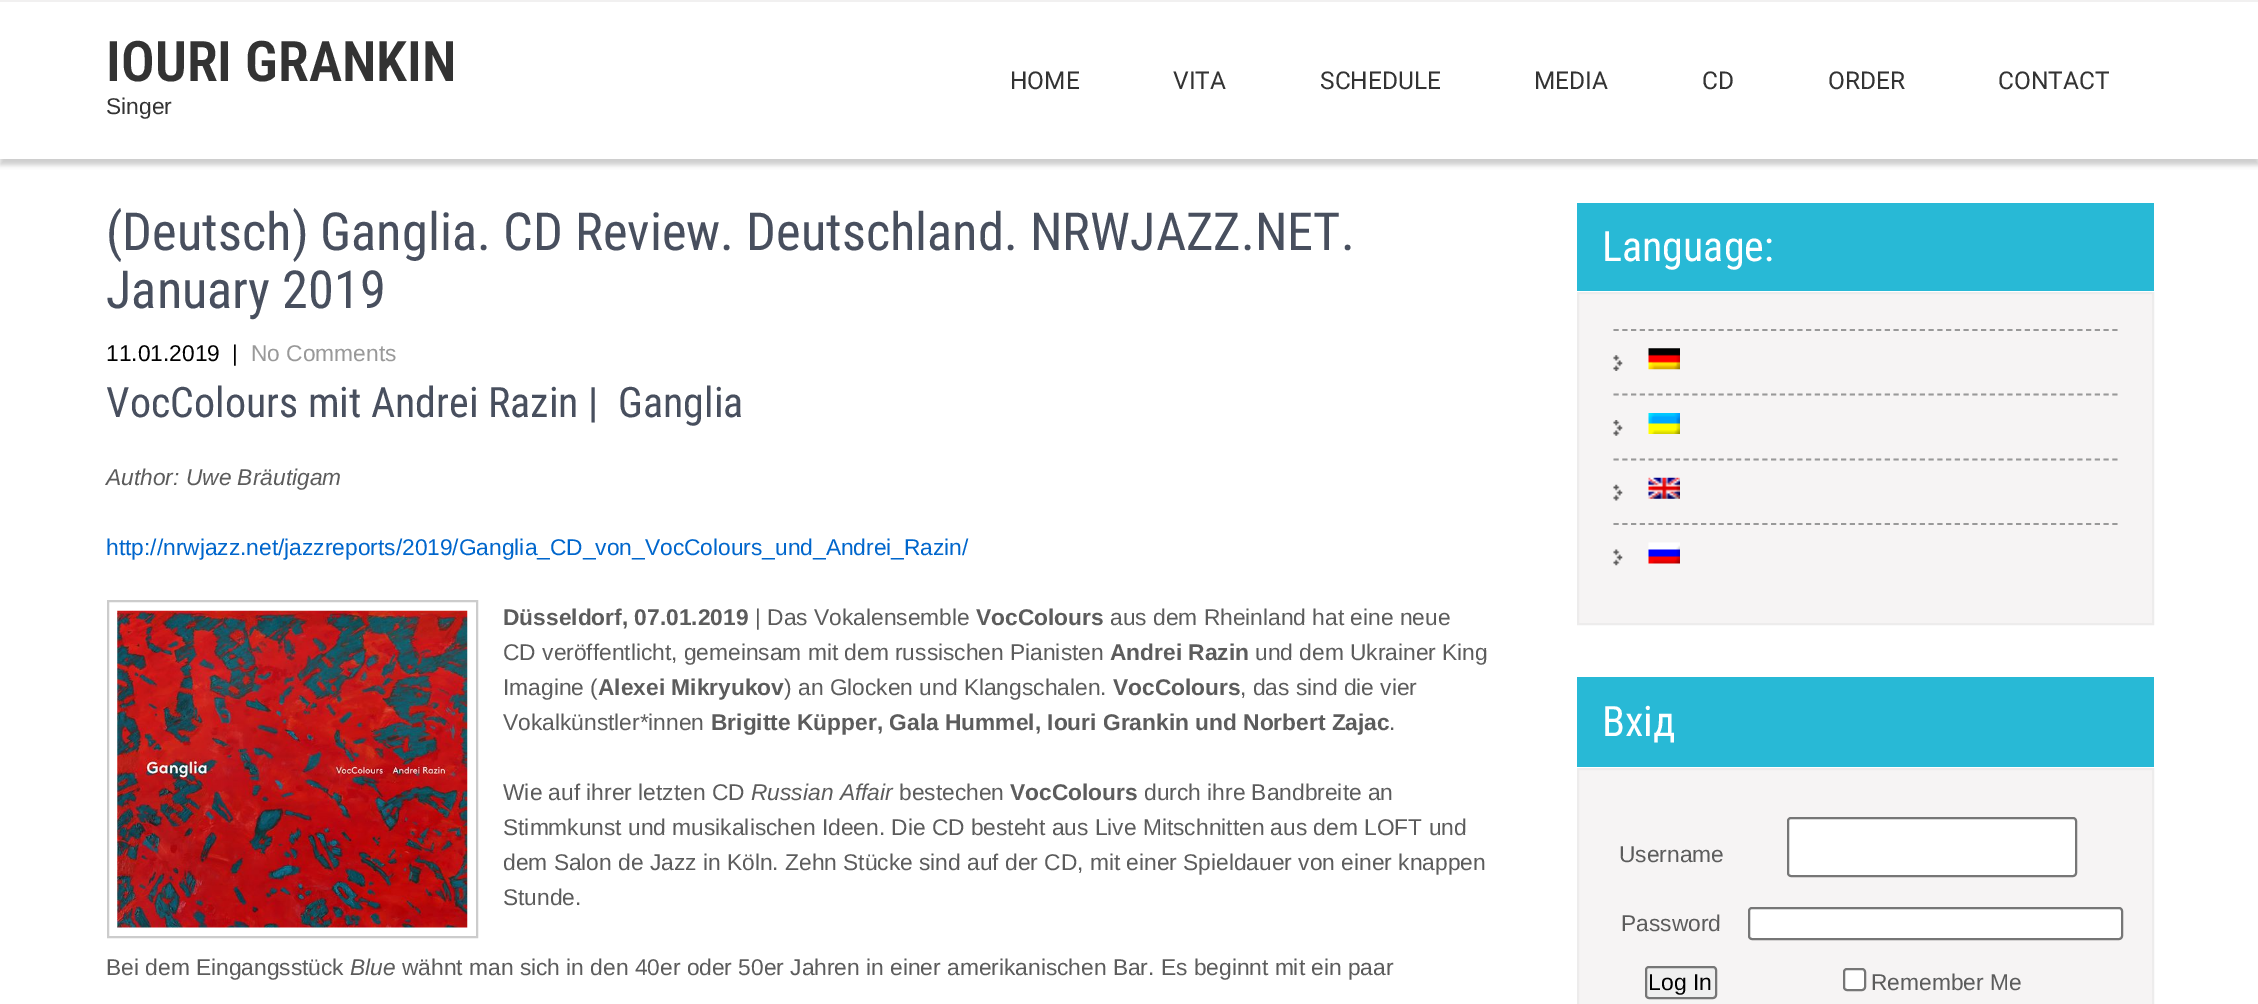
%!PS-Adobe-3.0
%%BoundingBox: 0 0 2258 1004
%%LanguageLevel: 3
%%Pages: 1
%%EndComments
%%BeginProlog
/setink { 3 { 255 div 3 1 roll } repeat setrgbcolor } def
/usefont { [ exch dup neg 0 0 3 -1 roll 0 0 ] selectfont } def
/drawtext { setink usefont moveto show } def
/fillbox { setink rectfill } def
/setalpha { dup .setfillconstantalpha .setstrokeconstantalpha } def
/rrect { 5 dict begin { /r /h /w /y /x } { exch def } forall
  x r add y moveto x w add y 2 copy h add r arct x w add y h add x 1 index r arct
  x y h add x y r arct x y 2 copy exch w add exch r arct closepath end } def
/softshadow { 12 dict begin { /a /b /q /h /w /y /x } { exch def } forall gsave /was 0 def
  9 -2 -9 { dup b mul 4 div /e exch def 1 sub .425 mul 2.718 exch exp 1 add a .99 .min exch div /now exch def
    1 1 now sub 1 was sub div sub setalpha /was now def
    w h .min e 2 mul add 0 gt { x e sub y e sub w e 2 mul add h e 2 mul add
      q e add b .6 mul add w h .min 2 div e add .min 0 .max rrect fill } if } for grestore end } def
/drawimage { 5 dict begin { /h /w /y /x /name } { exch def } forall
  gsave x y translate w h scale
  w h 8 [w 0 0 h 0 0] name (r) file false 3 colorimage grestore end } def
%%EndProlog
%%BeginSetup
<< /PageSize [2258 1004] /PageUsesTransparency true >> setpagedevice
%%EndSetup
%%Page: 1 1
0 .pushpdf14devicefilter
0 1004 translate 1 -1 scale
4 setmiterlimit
0 0 2258 1004 255 255 255 fillbox
0 0 2258 2 241 240 240 fillbox
gsave
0 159 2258 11 rectclip
204 204 204 setink
0 7 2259 158 0 2.5 1 softshadow
grestore
(IOURI GRANKIN) 106 81 /RobotoCondensed-SemiBold 56 51 51 51 drawtext
(Singer) 106 114 /LiberationSans-Regular 22.75 51 51 51 drawtext
(HOME) 1010 89 /Roboto-Regular 24.5 51 51 51 drawtext
(VITA) 1173 89 /Roboto-Regular 24.5 51 51 51 drawtext
(SCHEDULE) 1320 89 /Roboto-Regular 24.5 51 51 51 drawtext
(MEDIA) 1534 89 /Roboto-Regular 24.5 51 51 51 drawtext
(CD) 1702 89 /Roboto-Regular 24.5 51 51 51 drawtext
(ORDER) 1828 89 /Roboto-Regular 24.5 51 51 51 drawtext
(CONTACT) 1998 89 /Roboto-Regular 24.5 51 51 51 drawtext
(\(Deutsch\) Ganglia. CD Review. Deutschland. NRWJAZZ.NET.) 106 250 /RobotoCondensed-Regular 52.5 72 79 94 drawtext
(January 2019) 106 308 /RobotoCondensed-Regular 52.5 72 79 94 drawtext
(11.01.2019) 106 361 /LiberationSans-Regular 22.75 0 0 0 drawtext
(|) 232 361 /LiberationSans-Regular 22.75 0 0 0 drawtext
(No Comments) 251 361 /LiberationSans-Regular 22.75 153 153 153 drawtext
(VocColours mit Andrei Razin |  Ganglia) 106 417 /RobotoCondensed-Regular 42 72 79 94 drawtext
(Author: Uwe Bräutigam) 106 485 /LiberationSans-Italic 22.75 92 92 92 drawtext
(http://nrwjazz.net/jazzreports/2019/Ganglia_CD_von_VocColours_und_Andrei_Razin/) 106 555 /LiberationSans-Regular 22.75 0 102 204 drawtext
204 204 204 setink
2 setlinewidth
108 601 369 336 rectstroke
(assets/img1.rgb) 117 610 351 318 drawimage
(Düsseldorf, 07.01.2019) 503 625 /LiberationSans-Bold 22.75 92 92 92 drawtext
(| Das Vokalensemble) 755 625 /LiberationSans-Regular 22.75 92 92 92 drawtext
(VocColours) 976 625 /LiberationSans-Bold 22.75 92 92 92 drawtext
(aus dem Rheinland hat eine neue) 1110 625 /LiberationSans-Regular 22.75 92 92 92 drawtext
(CD veröffentlicht, gemeinsam mit dem russischen Pianisten) 503 660 /LiberationSans-Regular 22.75 92 92 92 drawtext
(Andrei Razin) 1110 660 /LiberationSans-Bold 22.75 92 92 92 drawtext
(und dem Ukrainer King) 1255 660 /LiberationSans-Regular 22.75 92 92 92 drawtext
(Imagine \() 503 695 /LiberationSans-Regular 22.75 92 92 92 drawtext
(Alexei Mikryukov) 598 695 /LiberationSans-Bold 22.75 92 92 92 drawtext
(\) an Glocken und Klangschalen.) 784 695 /LiberationSans-Regular 22.75 92 92 92 drawtext
(VocColours) 1113 695 /LiberationSans-Bold 22.75 92 92 92 drawtext
(, das sind die vier) 1240 695 /LiberationSans-Regular 22.75 92 92 92 drawtext
(Vokalkünstler*innen) 503 730 /LiberationSans-Regular 22.75 92 92 92 drawtext
(Brigitte Küpper, Gala Hummel, Iouri Grankin und Norbert Zajac) 711 730 /LiberationSans-Bold 22.75 92 92 92 drawtext
(.) 1389 730 /LiberationSans-Regular 22.75 92 92 92 drawtext
(Wie auf ihrer letzten CD) 503 800 /LiberationSans-Regular 22.75 92 92 92 drawtext
(Russian Affair) 751 800 /LiberationSans-Italic 22.75 92 92 92 drawtext
(bestechen) 899 800 /LiberationSans-Regular 22.75 92 92 92 drawtext
(VocColours) 1010 800 /LiberationSans-Bold 22.75 92 92 92 drawtext
(durch ihre Bandbreite an) 1144 800 /LiberationSans-Regular 22.75 92 92 92 drawtext
(Stimmkunst und musikalischen Ideen. Die CD besteht aus Live Mitschnitten aus dem LOFT und) 503 835 /LiberationSans-Regular 22.75 92 92 92 drawtext
(dem Salon de Jazz in Köln. Zehn Stücke sind auf der CD, mit einer Spieldauer von einer knappen) 503 870 /LiberationSans-Regular 22.75 92 92 92 drawtext
(Stunde.) 503 905 /LiberationSans-Regular 22.75 92 92 92 drawtext
(Bei dem Eingangsstück) 106 975 /LiberationSans-Regular 22.75 92 92 92 drawtext
(Blue) 350 975 /LiberationSans-Italic 22.75 92 92 92 drawtext
(wähnt man sich in den 40er oder 50er Jahren in einer amerikanischen Bar. Es beginnt mit ein paar) 402 975 /LiberationSans-Regular 22.75 92 92 92 drawtext
1577 203 577 88 40 185 214 fillbox
(Language:) 1602 261 /RobotoCondensed-Regular 42 255 255 255 drawtext
246 244 244 setink
1578 293 moveto 2153 293 lineto 2153 624 lineto 1578 624 lineto closepath gsave fill grestore
237 236 236 setink
stroke
153 153 153 setink
1.8 setlinewidth
[5.25 3.5] 0 setdash
1613.5 330 moveto 2117.5 330 lineto stroke
(assets/img2.rgb) 1613 355 10 16 drawimage
(assets/img3.rgb) 1648 348 32 22 drawimage
1613.5 394.5 moveto 2117.5 394.5 lineto stroke
(assets/img4.rgb) 1613 420 10 16 drawimage
(assets/img5.rgb) 1648 413 32 21 drawimage
1613.5 459.5 moveto 2117.5 459.5 lineto stroke
(assets/img6.rgb) 1613 484 10 17 drawimage
(assets/img7.rgb) 1648 477 32 22 drawimage
1613.5 524 moveto 2117.5 524 lineto stroke
(assets/img8.rgb) 1613 549 10 17 drawimage
(assets/img9.rgb) 1648 542 32 22 drawimage
1577 677 577 90 40 185 214 fillbox
(Вхід) 1602 736 /RobotoCondensed-Regular 42 255 255 255 drawtext
246 244 244 setink
1578 769 moveto 2153 769 lineto 2153 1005 lineto 1578 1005 lineto closepath gsave fill grestore
237 236 236 setink
2 setlinewidth
[] 0 setdash
stroke
(Username) 1619 862 /LiberationSans-Regular 22.75 92 92 92 drawtext
255 255 255 setink
1788 818 288 58 3 rrect gsave fill grestore
118 118 118 setink
stroke
(Password) 1621 931 /LiberationSans-Regular 22.75 92 92 92 drawtext
255 255 255 setink
1749 908 373 31 3 rrect gsave fill grestore
118 118 118 setink
stroke
239 239 239 setink
1646 967 70 31 3 rrect gsave fill grestore
118 118 118 setink
stroke
(Log In) 1648 990 /LiberationSans-Regular 23 0 0 0 drawtext
255 255 255 setink
1844 969 21 21 3 rrect gsave fill grestore
118 118 118 setink
stroke
(Remember Me) 1871 990 /LiberationSans-Regular 22.75 92 92 92 drawtext
.poppdf14devicefilter showpage
%%EOF
